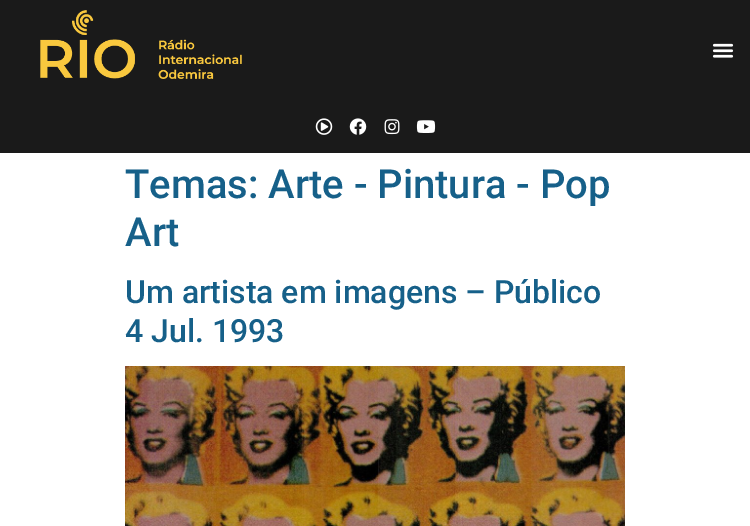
%!PS-Adobe-3.0
%%BoundingBox: 0 0 750 526
%%LanguageLevel: 3
%%Pages: 1
%%EndComments
%%BeginProlog
/setink { 3 { 255 div 3 1 roll } repeat setrgbcolor } def
/usefont { [ exch dup neg 0 0 3 -1 roll 0 0 ] selectfont } def
/drawtext { setink usefont moveto show } def
/fillbox { setink rectfill } def
/drawimage { 5 dict begin { /h /w /y /x /name } { exch def } forall
  gsave x y translate w h scale
  w h 8 [w 0 0 h 0 0] name (r) file false 3 colorimage grestore end } def
%%EndProlog
%%BeginSetup
<< /PageSize [750 526] >> setpagedevice
%%EndSetup
%%Page: 1 1
0 526 translate 1 -1 scale
4 setmiterlimit
0 0 750 526 255 255 255 fillbox
0 0 750 153 26 26 26 fillbox
(assets/img1.rgb) 40 10 202 69 drawimage
(assets/img2.rgb) 712 43 22 15 drawimage
(assets/img3.rgb) 315 118 18 17 drawimage
(assets/img4.rgb) 349 118 18 17 drawimage
(assets/img5.rgb) 384 119 16 16 drawimage
(assets/img6.rgb) 416 120 20 13 drawimage
(Temas: Arte - Pintura - Pop) 125 198 /Roboto-Medium 40 22 96 137 drawtext
(Art) 125 246 /Roboto-Medium 40 22 96 137 drawtext
(Um artista em imagens – Público) 125 303 /Roboto-Medium 32 22 96 137 drawtext
(4 Jul. 1993) 125 342 /Roboto-Medium 32 22 96 137 drawtext
(assets/img7.rgb) 125 366 500 160 drawimage
showpage
%%EOF
